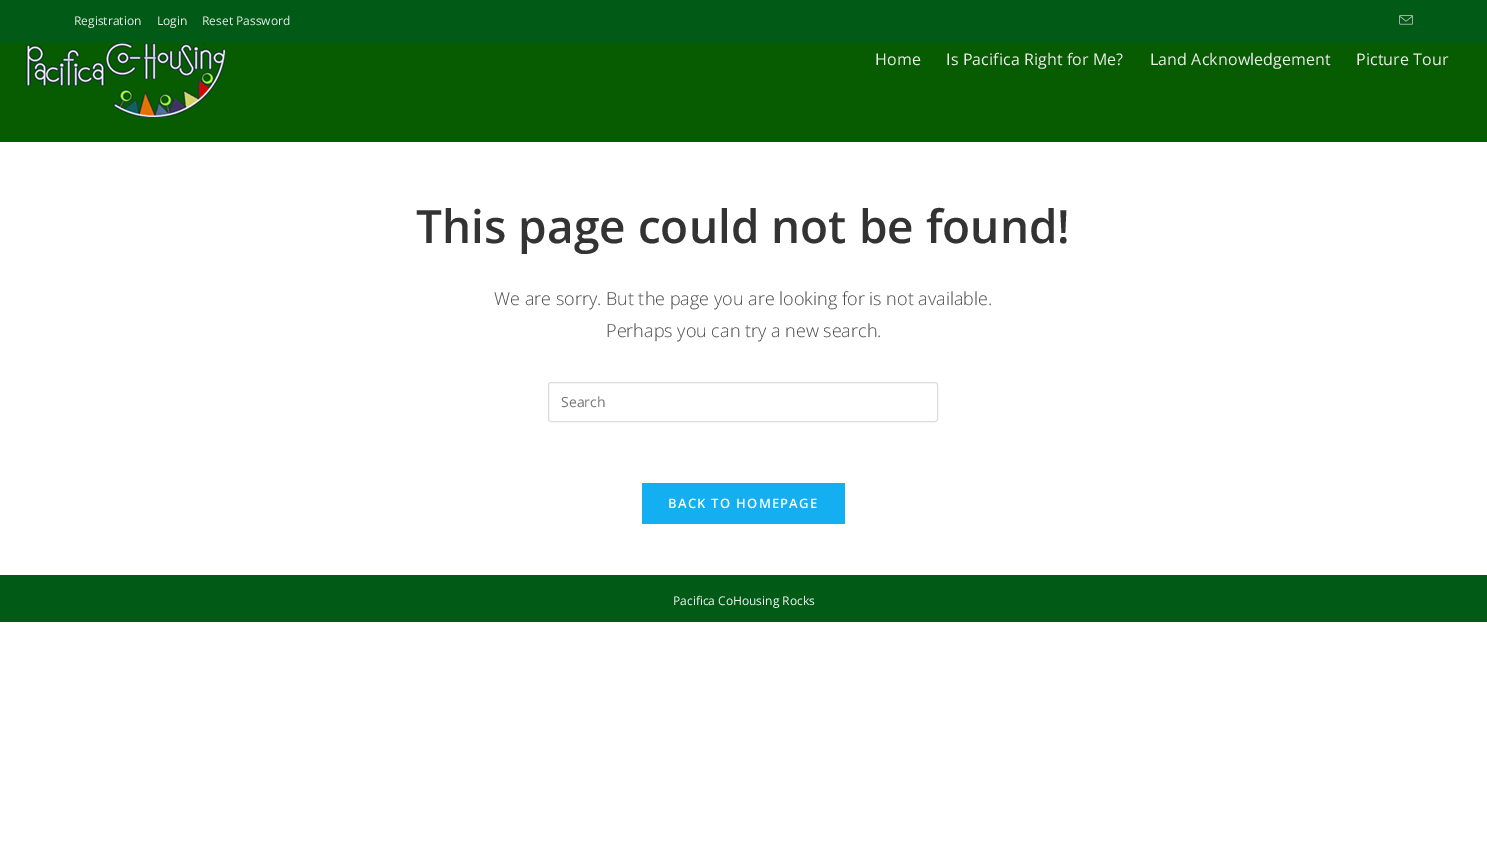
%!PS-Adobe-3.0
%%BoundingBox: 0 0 1487 849
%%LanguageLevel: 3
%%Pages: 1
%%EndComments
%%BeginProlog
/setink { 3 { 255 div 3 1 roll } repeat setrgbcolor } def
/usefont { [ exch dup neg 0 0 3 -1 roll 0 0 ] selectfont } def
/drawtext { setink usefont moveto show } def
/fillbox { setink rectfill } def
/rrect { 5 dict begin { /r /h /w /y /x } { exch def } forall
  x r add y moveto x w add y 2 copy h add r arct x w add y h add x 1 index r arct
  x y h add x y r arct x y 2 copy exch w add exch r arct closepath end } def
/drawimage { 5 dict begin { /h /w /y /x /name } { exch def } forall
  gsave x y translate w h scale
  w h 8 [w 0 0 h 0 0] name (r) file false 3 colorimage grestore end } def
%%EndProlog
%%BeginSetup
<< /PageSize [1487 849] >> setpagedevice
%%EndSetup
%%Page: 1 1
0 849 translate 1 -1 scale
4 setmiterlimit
0 0 1487 849 255 255 255 fillbox
0 0 1487 43 1 91 22 fillbox
(Registration) 74 25 /OpenSans-Regular 12 232 237 235 drawtext
(Login) 157 25 /OpenSans-Regular 12 232 237 235 drawtext
(Reset Password) 202 25 /OpenSans-Regular 12 232 237 235 drawtext
(assets/img1.rgb) 1399 15 14 10 drawimage
0 43 1487 99 7 91 0 fillbox
(assets/img2.rgb) 26 43 199 74 drawimage
/OpenSans-Regular 16 usefont
239 239 239 setink
875 65 moveto 0.1 0 (Home) ashow
946 65 moveto 0.1 0 (Is Pacifica Right for Me?) ashow
1150 65 moveto 0.1 0 (Land Acknowledgement) ashow
1356 65 moveto 0.1 0 (Picture Tour) ashow
(This page could not be found!) 416 243 /OpenSans-SemiBold 46 51 51 51 drawtext
(We are sorry. But the page you are looking for is not available.) 494 305 /OpenSans-Light 18 74 74 74 drawtext
(Perhaps you can try a new search.) 606 337 /OpenSans-Light 18 74 74 74 drawtext
221 221 221 setink
548.5 382.5 389 39 2.5 rrect stroke
(Search) 561 407 /OpenSans-Regular 14 117 117 117 drawtext
642 483 203 41 19 175 240 fillbox
/OpenSans-SemiBold 13 usefont
255 255 255 setink
668 508 moveto 1.25 0 (BACK TO HOMEPAGE) ashow
0 575 1487 47 1 91 22 fillbox
(Pacifica CoHousing Rocks) 673 605 /OpenSans-Regular 12 247 247 247 drawtext
showpage
%%EOF
